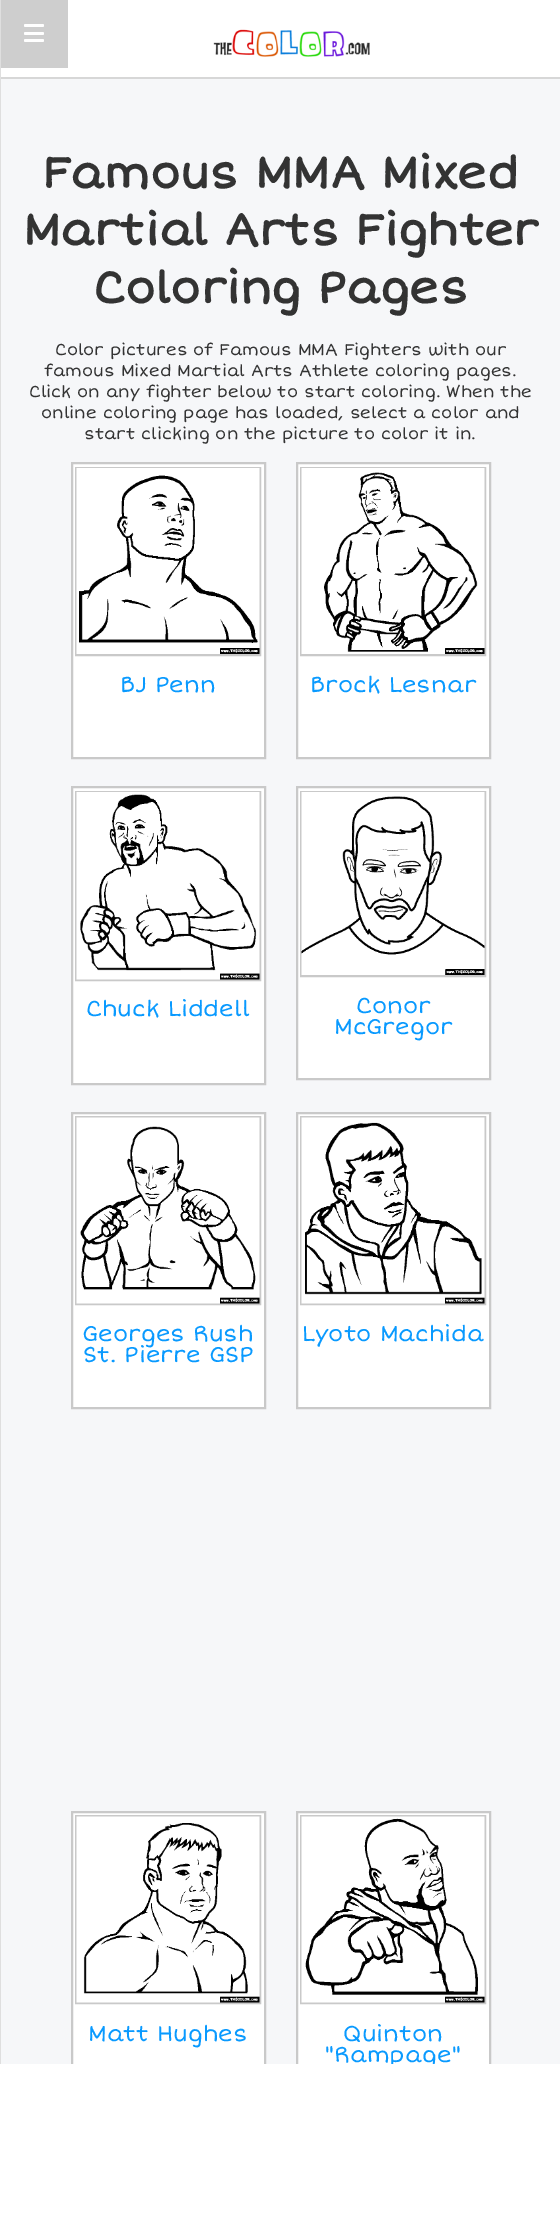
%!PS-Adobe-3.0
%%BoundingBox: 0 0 560 2214
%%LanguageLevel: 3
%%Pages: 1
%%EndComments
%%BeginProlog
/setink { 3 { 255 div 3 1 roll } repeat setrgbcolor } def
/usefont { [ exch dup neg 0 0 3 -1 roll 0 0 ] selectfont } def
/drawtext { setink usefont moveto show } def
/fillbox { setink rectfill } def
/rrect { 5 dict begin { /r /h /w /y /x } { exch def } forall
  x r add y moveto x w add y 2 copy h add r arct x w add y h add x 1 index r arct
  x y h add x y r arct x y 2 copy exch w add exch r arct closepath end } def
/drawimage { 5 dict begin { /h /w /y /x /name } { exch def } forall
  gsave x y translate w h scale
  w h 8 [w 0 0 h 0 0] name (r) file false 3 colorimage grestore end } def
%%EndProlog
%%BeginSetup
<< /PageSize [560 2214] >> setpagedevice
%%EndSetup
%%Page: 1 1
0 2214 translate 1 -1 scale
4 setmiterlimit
0 0 560 2214 246 247 249 fillbox
1 0 559 77 255 255 255 fillbox
0 77 560 2 215 215 215 fillbox
0 0 1 2064 223 223 223 fillbox
1 0 67 68 206 206 206 fillbox
255 255 255 setink
24 24 20 3 1.5 rrect fill
24 32 20 3 1.5 rrect fill
24 39 20 3 1.5 rrect fill
(assets/img1.rgb) 213 29 157 28 drawimage
(Famous MMA Mixed) 42 188 /ShortStack-Bold 45 51 51 51 drawtext
(Martial Arts Fighter) 23 245 /ShortStack-Bold 45 51 51 51 drawtext
(Coloring Pages) 93 303 /ShortStack-Bold 45 51 51 51 drawtext
(Color pictures of Famous MMA Fighters with our) 55 355 /ShortStack-Regular 16.5 51 51 51 drawtext
(famous Mixed Martial Arts Athlete coloring pages.) 44 376 /ShortStack-Regular 16.5 51 51 51 drawtext
(Click on any fighter below to start coloring. When the) 29 397 /ShortStack-Regular 16.5 51 51 51 drawtext
(online coloring page has loaded, select a color and) 41 418 /ShortStack-Regular 16.5 51 51 51 drawtext
(start clicking on the picture to color it in.) 84 439 /ShortStack-Regular 16.5 51 51 51 drawtext
255 255 255 setink
72 463 moveto 265 463 lineto 265 758 lineto 72 758 lineto closepath gsave fill grestore
201 201 201 setink
2 setlinewidth
stroke
76 468 184 187 rectstroke
(assets/img2.rgb) 76 468 184 186 drawimage
(BJ Penn) 120 692 /ShortStack-Regular 22.5 9 154 255 drawtext
255 255 255 setink
297 463 moveto 490 463 lineto 490 758 lineto 297 758 lineto closepath gsave fill grestore
201 201 201 setink
stroke
301 468 184 187 rectstroke
(assets/img3.rgb) 301 468 184 186 drawimage
(Brock Lesnar) 310 692 /ShortStack-Regular 22.5 9 154 255 drawtext
255 255 255 setink
72 787 moveto 265 787 lineto 265 1084 lineto 72 1084 lineto closepath gsave fill grestore
201 201 201 setink
stroke
76 792 184 188 rectstroke
(assets/img4.rgb) 76 792 184 188 drawimage
(Chuck Liddell) 86 1016 /ShortStack-Regular 22.5 9 154 255 drawtext
255 255 255 setink
297 787 moveto 490 787 lineto 490 1079 lineto 297 1079 lineto closepath gsave fill grestore
201 201 201 setink
stroke
301 792 184 184 rectstroke
(assets/img5.rgb) 301 792 184 183 drawimage
(Conor) 356 1013 /ShortStack-Regular 22.5 9 154 255 drawtext
(McGregor) 334 1034 /ShortStack-Regular 22.5 9 154 255 drawtext
255 255 255 setink
72 1113 moveto 265 1113 lineto 265 1408 lineto 72 1408 lineto closepath gsave fill grestore
201 201 201 setink
stroke
76 1117 184 187 rectstroke
(assets/img6.rgb) 76 1117 184 187 drawimage
(Georges Rush) 82 1341 /ShortStack-Regular 22.5 9 154 255 drawtext
(St. Pierre GSP) 83 1362 /ShortStack-Regular 22.5 9 154 255 drawtext
255 255 255 setink
297 1113 moveto 490 1113 lineto 490 1408 lineto 297 1408 lineto closepath gsave fill grestore
201 201 201 setink
stroke
301 1117 184 187 rectstroke
(assets/img7.rgb) 301 1117 184 187 drawimage
(Lyoto Machida) 302 1341 /ShortStack-Regular 22.5 9 154 255 drawtext
73 1813 191 251 255 255 255 fillbox
201 201 201 setink
72 1812 193 295 rectstroke
76 1816 184 187 rectstroke
(assets/img8.rgb) 76 1816 184 187 drawimage
(Matt Hughes) 88 2041 /ShortStack-Regular 22.5 9 154 255 drawtext
298 1813 191 251 255 255 255 fillbox
201 201 201 setink
297 1812 193 295 rectstroke
301 1816 184 187 rectstroke
(assets/img9.rgb) 301 1816 184 187 drawimage
(Quinton) 343 2041 /ShortStack-Regular 22.5 9 154 255 drawtext
("Rampage") 324 2062 /ShortStack-Regular 22.5 9 154 255 drawtext
0 2064 560 150 255 255 255 fillbox
showpage
%%EOF
